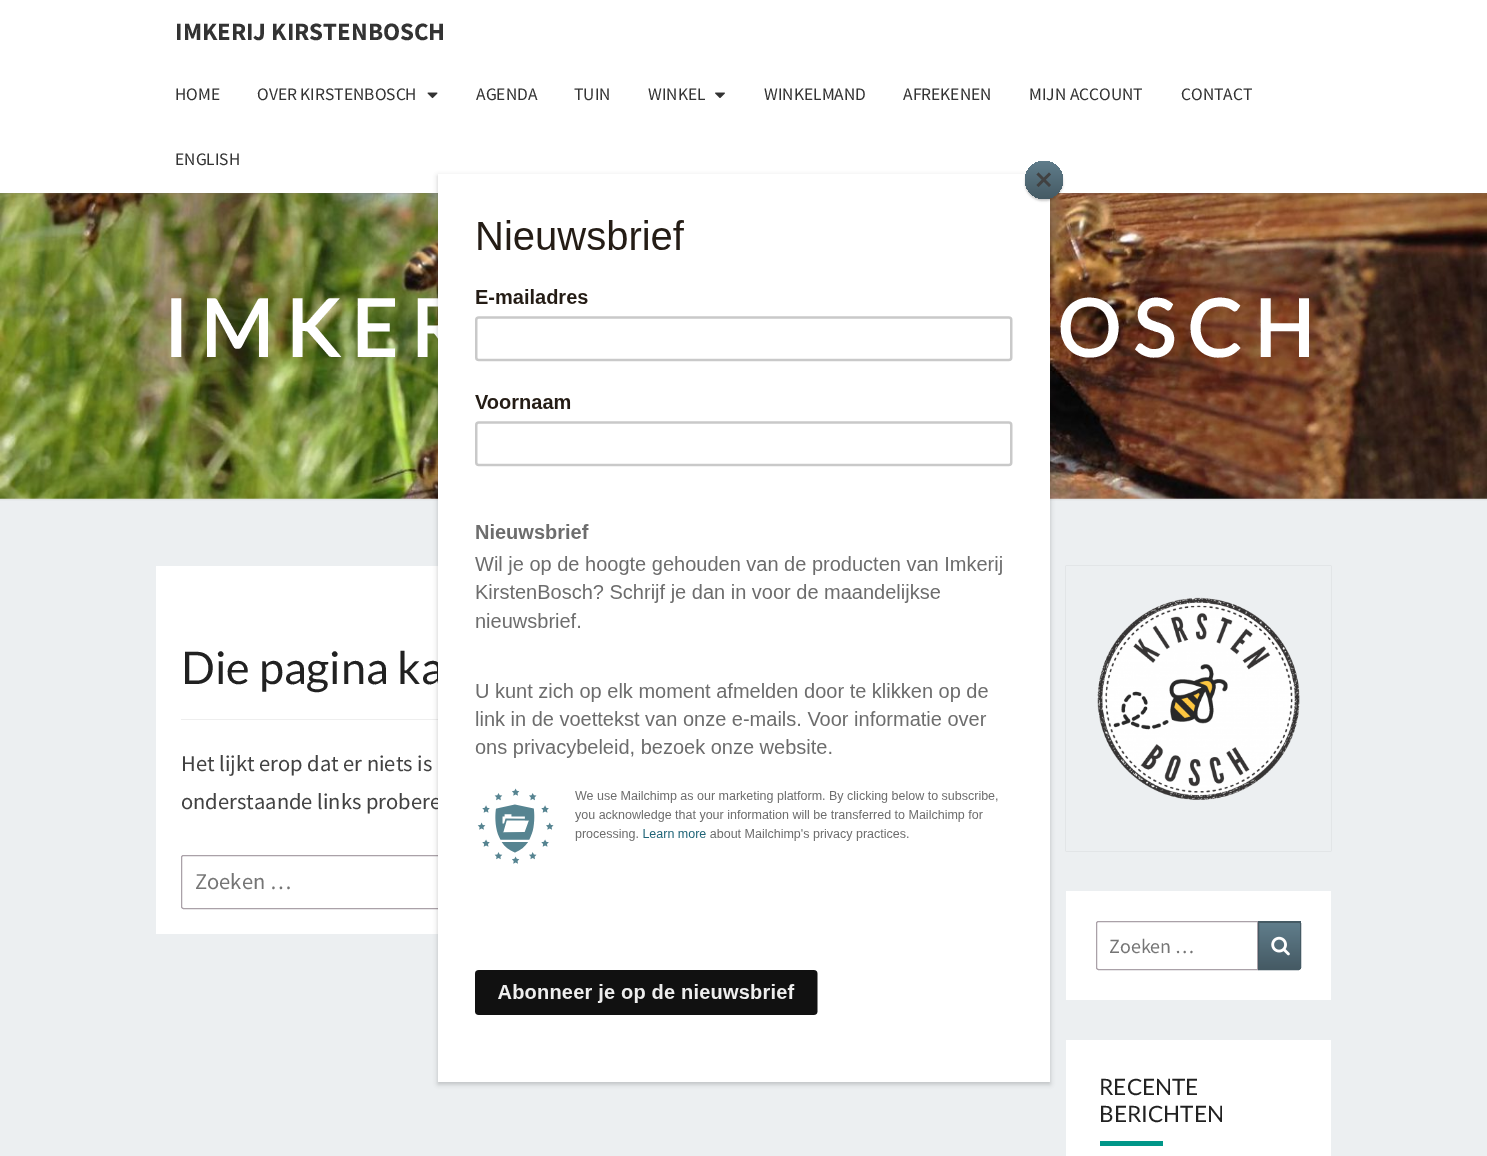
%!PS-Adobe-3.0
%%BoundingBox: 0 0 1487 1156
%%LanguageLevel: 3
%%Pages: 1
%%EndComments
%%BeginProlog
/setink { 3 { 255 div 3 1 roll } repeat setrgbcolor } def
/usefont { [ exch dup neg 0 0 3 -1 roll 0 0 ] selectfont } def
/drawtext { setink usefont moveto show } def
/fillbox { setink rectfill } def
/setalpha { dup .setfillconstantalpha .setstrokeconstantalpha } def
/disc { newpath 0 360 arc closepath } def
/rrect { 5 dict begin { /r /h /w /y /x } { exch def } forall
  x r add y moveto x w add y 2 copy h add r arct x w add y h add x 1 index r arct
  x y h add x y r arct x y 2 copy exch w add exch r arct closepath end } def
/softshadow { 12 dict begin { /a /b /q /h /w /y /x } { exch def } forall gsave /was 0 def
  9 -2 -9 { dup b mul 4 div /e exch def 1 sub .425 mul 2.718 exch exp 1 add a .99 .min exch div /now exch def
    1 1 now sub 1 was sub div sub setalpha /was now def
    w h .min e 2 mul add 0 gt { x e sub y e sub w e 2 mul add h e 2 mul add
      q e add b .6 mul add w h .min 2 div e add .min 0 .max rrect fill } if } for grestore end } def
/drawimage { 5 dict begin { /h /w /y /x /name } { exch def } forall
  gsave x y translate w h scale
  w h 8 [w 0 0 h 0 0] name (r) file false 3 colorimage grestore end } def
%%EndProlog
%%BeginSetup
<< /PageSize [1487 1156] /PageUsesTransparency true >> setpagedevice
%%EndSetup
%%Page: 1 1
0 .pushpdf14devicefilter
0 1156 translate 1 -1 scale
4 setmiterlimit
0 0 1487 1156 236 239 241 fillbox
182 182 182 setink
-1 191 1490 309 0 1 0.3 softshadow
(assets/img3.rgb) 0 193 1487 306 drawimage
100 100 100 setink
0 1 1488 193 0 0.5 0.2 softshadow
0 0 1487 193 255 255 255 fillbox
(IMKERIJ KIRSTENBOSCH) 175 40 /SourceSansPro-Bold 25 51 51 51 drawtext
(HOME) 175 100 /SourceSansPro-Regular 17.5 51 51 51 drawtext
(OVER KIRSTENBOSCH) 257 100 /SourceSansPro-Regular 17.5 51 51 51 drawtext
(assets/img1.rgb) 427 92 11 7 drawimage
(AGENDA) 476 100 /SourceSansPro-Regular 17.5 51 51 51 drawtext
(TUIN) 574 100 /SourceSansPro-Regular 17.5 51 51 51 drawtext
(WINKEL) 648 100 /SourceSansPro-Regular 17.5 51 51 51 drawtext
(assets/img2.rgb) 715 92 10 6 drawimage
(WINKELMAND) 764 100 /SourceSansPro-Regular 17.5 51 51 51 drawtext
(AFREKENEN) 903 100 /SourceSansPro-Regular 17.5 51 51 51 drawtext
(MIJN ACCOUNT) 1029 100 /SourceSansPro-Regular 17.5 51 51 51 drawtext
(CONTACT) 1181 100 /SourceSansPro-Regular 17.5 51 51 51 drawtext
(ENGLISH) 175 165 /SourceSansPro-Regular 17.5 51 51 51 drawtext
/Lato-Bold 79 usefont
255 255 255 setink
163 357 moveto 12.5 0 (IMKER) ashow
1057 357 moveto 12.5 0 (OSCH) ashow
156 566 282 368 255 255 255 fillbox
181 719 257 1 238 238 238 fillbox
(Die pagina ka) 181 684 /Lato-Regular 45 33 33 33 drawtext
(Het lijkt erop dat er niets is) 181 771 /SourceSansPro-Regular 22.5 66 66 66 drawtext
(onderstaande links probere) 181 809 /SourceSansPro-Regular 22.5 66 66 66 drawtext
170 161 168 setink
183.5 855.5 moveto 950.5 855.5 lineto 950.5 908.5 lineto 183.5 908.5 lineto 182.5 908.5 181.5 907.5 181.5 906.5 curveto 181.5 857.5 lineto 181.5 856.5 182.5 855.5 183.5 855.5 curveto closepath stroke
(Zoeken …) 195 889 /SourceSansPro-Regular 22.5 117 117 117 drawtext
gsave
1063 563 moveto 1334 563 lineto 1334 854 lineto 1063 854 lineto closepath 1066 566 moveto 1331 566 lineto 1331 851 lineto 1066 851 lineto closepath eoclip newpath
0 0 0 setink
1066 566 265 285 0 0.5 0.15 softshadow
grestore
(assets/img4.rgb) 1097 597 203 203 drawimage
1066 891 265 109 255 255 255 fillbox
170 161 168 setink
1098.5 921.5 moveto 1257.5 921.5 lineto 1257.5 969.5 lineto 1098.5 969.5 lineto 1097.5 969.5 1096.5 968.5 1096.5 967.5 curveto 1096.5 923.5 lineto 1096.5 922.5 1097.5 921.5 1098.5 921.5 curveto closepath stroke
(Zoeken …) 1109 953 /SourceSansPro-Regular 20 117 117 117 drawtext
gsave
1258 921 moveto 1298.5 921 lineto 1300 921 1301 922 1301 923.5 curveto 1301 967.5 lineto 1301 969 1300 970 1298.5 970 curveto 1258 970 lineto closepath clip newpath
gsave 1258 921 moveto 1301 921 lineto 1301 923 lineto 1258 923 lineto closepath clip newpath
<< /ShadingType 2 /ColorSpace /DeviceRGB /Coords [1279 876 1279 923] /Extend [true true] /Function << /FunctionType 2 /Domain [0 1] /C0 [0.376 0.49 0.545] /C1 [0.271 0.353 0.392] /N 1 >> >> shfill grestore
grestore
gsave 1259 923 moveto 1301 923 lineto 1301 969 lineto 1259 969 lineto closepath clip newpath
<< /ShadingType 2 /ColorSpace /DeviceRGB /Coords [1279 923 1279 969] /Extend [true true] /Function << /FunctionType 2 /Domain [0 1] /C0 [0.376 0.49 0.545] /C1 [0.271 0.353 0.392] /N 1 >> >> shfill grestore
69 90 100 setink
1258.5 921.5 moveto 1298.5 921.5 lineto 1299.5 921.5 1300.5 922.5 1300.5 923.5 curveto 1300.5 967.5 lineto 1300.5 968.5 1299.5 969.5 1298.5 969.5 curveto 1258.5 969.5 lineto closepath stroke
(assets/img5.rgb) 1271 936 19 20 drawimage
1066 1040 265 116 255 255 255 fillbox
(RECENTE) 1099 1095 /Lato-Regular 22.5 33 33 33 drawtext
(BERICHTEN) 1099 1122 /Lato-Regular 22.5 33 33 33 drawtext
1100 1141 63 5 0 150 136 fillbox
gsave
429 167 moveto 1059 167 lineto 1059 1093 lineto 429 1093 lineto closepath 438 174 moveto 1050 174 lineto 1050 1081 lineto 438 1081 lineto closepath eoclip newpath
0 0 0 setink
438 176 612 908 0 2.5 0.2 softshadow
grestore
(assets/img6.rgb) 438 193 612 889 drawimage
0 0 0 setink
1025 164 38 37 18.5 1 0.2 softshadow
gsave 1044 180 19 disc clip newpath
<< /ShadingType 2 /ColorSpace /DeviceRGB /Coords [1044 161 1044 199] /Extend [true true] /Function << /FunctionType 2 /Domain [0 1] /C0 [0.376 0.49 0.545] /C1 [0.271 0.353 0.392] /N 1 >> >> shfill grestore
65 65 65 setink
1049 172.5 moveto 1051 174.5 lineto 1038.5 187 lineto 1036.5 185 lineto closepath fill
1036.5 174.5 moveto 1038.5 172.5 lineto 1051 185 lineto 1049 187 lineto closepath fill
.poppdf14devicefilter showpage
%%EOF
